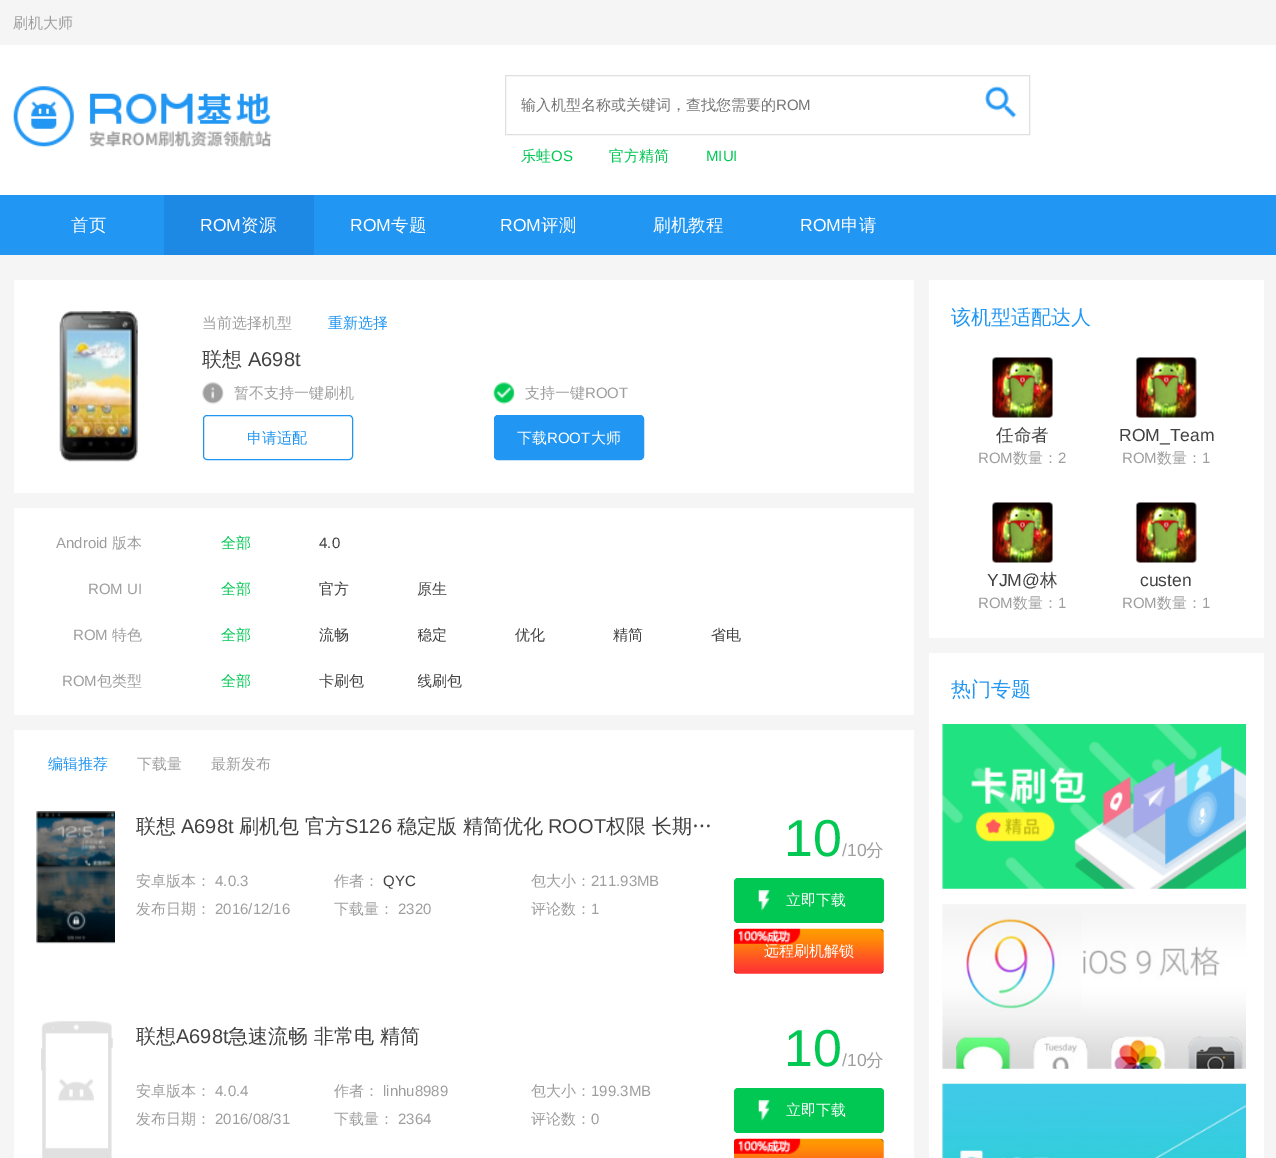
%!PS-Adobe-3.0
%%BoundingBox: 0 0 1276 1158
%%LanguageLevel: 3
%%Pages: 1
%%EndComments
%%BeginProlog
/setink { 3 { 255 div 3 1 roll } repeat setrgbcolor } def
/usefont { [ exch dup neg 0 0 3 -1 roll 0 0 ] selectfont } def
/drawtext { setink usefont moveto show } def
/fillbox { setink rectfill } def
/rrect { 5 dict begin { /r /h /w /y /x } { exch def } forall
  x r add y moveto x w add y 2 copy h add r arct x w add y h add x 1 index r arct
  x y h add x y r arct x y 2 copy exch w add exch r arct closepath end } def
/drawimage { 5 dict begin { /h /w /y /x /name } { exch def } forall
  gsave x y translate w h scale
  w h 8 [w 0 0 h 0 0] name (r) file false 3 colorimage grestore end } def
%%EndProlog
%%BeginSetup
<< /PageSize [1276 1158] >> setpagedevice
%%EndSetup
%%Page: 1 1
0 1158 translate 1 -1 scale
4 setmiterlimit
0 0 1276 1158 255 255 255 fillbox
0 0 1276 45 245 245 245 fillbox
(刷机大师) 13 28 /WenQuanYiZenHei-Medium 15 158 158 158 drawtext
(assets/img1.rgb) 13 86 259 61 drawimage
224 224 224 setink
505.5 75.5 524 59 rectstroke
(输入机型名称或关键词，查找您需要的) 521 110 /WenQuanYiZenHei-Medium 15 117 117 117 drawtext
(ROM) 776 110 /LiberationSans-Regular 15 117 117 117 drawtext
(assets/img2.rgb) 985 86 32 32 drawimage
(乐蛙) 521 161 /WenQuanYiZenHei-Medium 15 0 200 83 drawtext
(OS) 551 161 /LiberationSans-Regular 15 0 200 83 drawtext
(官方精简) 609 161 /WenQuanYiZenHei-Medium 15 0 200 83 drawtext
(MIUI) 706 161 /LiberationSans-Regular 15 0 200 83 drawtext
0 195 1276 60 33 150 243 fillbox
(首页) 71 231 /WenQuanYiZenHei-Medium 17.5 255 255 255 drawtext
164 195 150 60 30 136 229 fillbox
(ROM) 200 231 /LiberationSans-Regular 17.5 255 255 255 drawtext
(资源) 241 231 /WenQuanYiZenHei-Medium 17.5 255 255 255 drawtext
(ROM) 350 231 /LiberationSans-Regular 17.5 255 255 255 drawtext
(专题) 391 231 /WenQuanYiZenHei-Medium 17.5 255 255 255 drawtext
(ROM) 500 231 /LiberationSans-Regular 17.5 255 255 255 drawtext
(评测) 541 231 /WenQuanYiZenHei-Medium 17.5 255 255 255 drawtext
(刷机教程) 653 231 /WenQuanYiZenHei-Medium 17.5 255 255 255 drawtext
(ROM) 800 231 /LiberationSans-Regular 17.5 255 255 255 drawtext
(申请) 841 231 /WenQuanYiZenHei-Medium 17.5 255 255 255 drawtext
0 255 1276 903 245 245 245 fillbox
14 280 900 213 255 255 255 fillbox
(assets/img3.rgb) 59 311 79 151 drawimage
(当前选择机型) 202 328 /WenQuanYiZenHei-Medium 15 158 158 158 drawtext
(重新选择) 328 328 /WenQuanYiZenHei-Medium 15 33 150 243 drawtext
(联想) 202 366 /WenQuanYiZenHei-Medium 20 66 66 66 drawtext
(A698t) 248 366 /LiberationSans-Regular 20 66 66 66 drawtext
(assets/img4.rgb) 202 382 22 23 drawimage
(暂不支持一键刷机) 234 398 /WenQuanYiZenHei-Medium 15 158 158 158 drawtext
33 150 243 setink
203.5 415.5 149 44 3.5 rrect stroke
(申请适配) 247 443 /WenQuanYiZenHei-Medium 15 33 150 243 drawtext
(assets/img5.rgb) 493 382 22 23 drawimage
(支持一键) 525 398 /WenQuanYiZenHei-Medium 15 158 158 158 drawtext
(ROOT) 585 398 /LiberationSans-Regular 15 158 158 158 drawtext
33 150 243 setink
494.5 415.5 149 44 3.5 rrect gsave fill grestore
stroke
(下载) 517 443 /WenQuanYiZenHei-Medium 15 255 255 255 drawtext
(ROOT) 547 443 /LiberationSans-Regular 15 255 255 255 drawtext
(大师) 591 443 /WenQuanYiZenHei-Medium 15 255 255 255 drawtext
14 508 900 207 255 255 255 fillbox
(Android) 56 548 /LiberationSans-Regular 15 158 158 158 drawtext
(版本) 112 548 /WenQuanYiZenHei-Medium 15 158 158 158 drawtext
(全部) 221 548 /WenQuanYiZenHei-Medium 15 0 200 83 drawtext
(4.0) 319 548 /LiberationSans-Regular 15 66 66 66 drawtext
(ROM UI) 88 594 /LiberationSans-Regular 15 158 158 158 drawtext
(全部) 221 594 /WenQuanYiZenHei-Medium 15 0 200 83 drawtext
(官方) 319 594 /WenQuanYiZenHei-Medium 15 66 66 66 drawtext
(原生) 417 594 /WenQuanYiZenHei-Medium 15 66 66 66 drawtext
(ROM) 73 640 /LiberationSans-Regular 15 158 158 158 drawtext
(特色) 112 640 /WenQuanYiZenHei-Medium 15 158 158 158 drawtext
(全部) 221 640 /WenQuanYiZenHei-Medium 15 0 200 83 drawtext
(流畅) 319 640 /WenQuanYiZenHei-Medium 15 66 66 66 drawtext
gsave
418 623 87 25 rectclip
(稳定) 417 640 /WenQuanYiZenHei-Medium 15 66 66 66 drawtext
grestore
(优化) 515 640 /WenQuanYiZenHei-Medium 15 66 66 66 drawtext
(精简) 613 640 /WenQuanYiZenHei-Medium 15 66 66 66 drawtext
(省电) 711 640 /WenQuanYiZenHei-Medium 15 66 66 66 drawtext
(ROM) 62 686 /LiberationSans-Regular 15 158 158 158 drawtext
(包类型) 97 686 /WenQuanYiZenHei-Medium 15 158 158 158 drawtext
(全部) 221 686 /WenQuanYiZenHei-Medium 15 0 200 83 drawtext
(卡刷包) 319 686 /WenQuanYiZenHei-Medium 15 66 66 66 drawtext
gsave
418 669 87 25 rectclip
(线刷包) 417 686 /WenQuanYiZenHei-Medium 15 66 66 66 drawtext
grestore
14 730 900 428 255 255 255 fillbox
(编辑推荐) 48 769 /WenQuanYiZenHei-Medium 15 33 150 243 drawtext
(下载量) 137 769 /WenQuanYiZenHei-Medium 15 158 158 158 drawtext
(最新发布) 211 769 /WenQuanYiZenHei-Medium 15 158 158 158 drawtext
(assets/img6.rgb) 36 811 79 133 drawimage
(联想) 136 833 /WenQuanYiZenHei-Medium 20 66 66 66 drawtext
(A698t) 181 833 /LiberationSans-Regular 20 66 66 66 drawtext
(刷机包 官方) 239 833 /WenQuanYiZenHei-Medium 20 66 66 66 drawtext
(S126) 345 833 /LiberationSans-Regular 20 66 66 66 drawtext
(稳定版 精简优化) 397 833 /WenQuanYiZenHei-Medium 20 66 66 66 drawtext
(ROOT) 548 833 /LiberationSans-Regular 20 66 66 66 drawtext
(权限 长期…) 606 833 /WenQuanYiZenHei-Medium 20 66 66 66 drawtext
(安卓版本：) 136 886 /WenQuanYiZenHei-Medium 15 158 158 158 drawtext
(4.0.3) 215 886 /LiberationSans-Regular 15 158 158 158 drawtext
(作者：) 334 886 /WenQuanYiZenHei-Medium 15 158 158 158 drawtext
(QYC) 383 886 /LiberationSans-Regular 15 66 66 66 drawtext
(包大小：) 531 886 /WenQuanYiZenHei-Medium 15 158 158 158 drawtext
(211.93MB) 591 886 /LiberationSans-Regular 15 158 158 158 drawtext
(发布日期：) 136 914 /WenQuanYiZenHei-Medium 15 158 158 158 drawtext
(2016/12/16) 215 914 /LiberationSans-Regular 15 158 158 158 drawtext
(下载量：) 334 914 /WenQuanYiZenHei-Medium 15 158 158 158 drawtext
(2320) 398 914 /LiberationSans-Regular 15 158 158 158 drawtext
(评论数：) 531 914 /WenQuanYiZenHei-Medium 15 158 158 158 drawtext
(1) 591 914 /LiberationSans-Regular 15 158 158 158 drawtext
(10) 784 856 /LiberationSans-Regular 52 0 200 83 drawtext
(/10) 842 856 /LiberationSans-Regular 17.5 158 158 158 drawtext
(分) 866 856 /WenQuanYiZenHei-Medium 17.5 158 158 158 drawtext
0 200 83 setink
734 878 150 45 4 rrect fill
(assets/img7.rgb) 758 890 12 21 drawimage
(立即下载) 786 905 /WenQuanYiZenHei-Medium 15 255 255 255 drawtext
(assets/img8.rgb) 733 928 151 46 drawimage
(远程刷机解锁) 764 956 /WenQuanYiZenHei-Medium 15 255 255 255 drawtext
(assets/img9.rgb) 41 1021 72 137 drawimage
(联想) 136 1043 /WenQuanYiZenHei-Medium 20 66 66 66 drawtext
(A698t) 176 1043 /LiberationSans-Regular 20 66 66 66 drawtext
(急速流畅 非常电 精简) 228 1043 /WenQuanYiZenHei-Medium 20 66 66 66 drawtext
(安卓版本：) 136 1096 /WenQuanYiZenHei-Medium 15 158 158 158 drawtext
(4.0.4) 215 1096 /LiberationSans-Regular 15 158 158 158 drawtext
(作者：) 334 1096 /WenQuanYiZenHei-Medium 15 158 158 158 drawtext
(linhu8989) 383 1096 /LiberationSans-Regular 15 158 158 158 drawtext
(包大小：) 531 1096 /WenQuanYiZenHei-Medium 15 158 158 158 drawtext
(199.3MB) 591 1096 /LiberationSans-Regular 15 158 158 158 drawtext
(发布日期：) 136 1124 /WenQuanYiZenHei-Medium 15 158 158 158 drawtext
(2016/08/31) 215 1124 /LiberationSans-Regular 15 158 158 158 drawtext
(下载量：) 334 1124 /WenQuanYiZenHei-Medium 15 158 158 158 drawtext
(2364) 398 1124 /LiberationSans-Regular 15 158 158 158 drawtext
(评论数：) 531 1124 /WenQuanYiZenHei-Medium 15 158 158 158 drawtext
(0) 591 1124 /LiberationSans-Regular 15 158 158 158 drawtext
(10) 784 1066 /LiberationSans-Regular 52 0 200 83 drawtext
(/10) 842 1066 /LiberationSans-Regular 17.5 158 158 158 drawtext
(分) 866 1066 /WenQuanYiZenHei-Medium 17.5 158 158 158 drawtext
0 200 83 setink
734 1088 150 45 4 rrect fill
(assets/img7.rgb) 758 1100 12 21 drawimage
(立即下载) 786 1115 /WenQuanYiZenHei-Medium 15 255 255 255 drawtext
(assets/img10.rgb) 734 1138 150 20 drawimage
929 280 335 358 255 255 255 fillbox
(该机型适配达人) 951 324 /WenQuanYiZenHei-Medium 20 33 150 243 drawtext
(assets/img11.rgb) 992 357 61 61 drawimage
(任命者) 996 441 /WenQuanYiZenHei-Medium 17.5 66 66 66 drawtext
(ROM) 978 463 /LiberationSans-Regular 15 158 158 158 drawtext
(数量：) 1013 463 /WenQuanYiZenHei-Medium 15 158 158 158 drawtext
(2) 1058 463 /LiberationSans-Regular 15 158 158 158 drawtext
(assets/img12.rgb) 1135 357 62 61 drawimage
(ROM_Team) 1119 441 /LiberationSans-Regular 17.5 66 66 66 drawtext
(ROM) 1122 463 /LiberationSans-Regular 15 158 158 158 drawtext
(数量：) 1157 463 /WenQuanYiZenHei-Medium 15 158 158 158 drawtext
(1) 1202 463 /LiberationSans-Regular 15 158 158 158 drawtext
(assets/img11.rgb) 992 502 61 61 drawimage
(YJM@) 987 586 /LiberationSans-Regular 17.5 66 66 66 drawtext
(林) 1040 586 /WenQuanYiZenHei-Medium 17.5 66 66 66 drawtext
(ROM) 978 608 /LiberationSans-Regular 15 158 158 158 drawtext
(数量：) 1013 608 /WenQuanYiZenHei-Medium 15 158 158 158 drawtext
(1) 1058 608 /LiberationSans-Regular 15 158 158 158 drawtext
(assets/img12.rgb) 1135 502 62 61 drawimage
(custen) 1140 586 /LiberationSans-Regular 17.5 66 66 66 drawtext
(ROM) 1122 608 /LiberationSans-Regular 15 158 158 158 drawtext
(数量：) 1157 608 /WenQuanYiZenHei-Medium 15 158 158 158 drawtext
(1) 1202 608 /LiberationSans-Regular 15 158 158 158 drawtext
929 653 335 505 255 255 255 fillbox
(热门专题) 951 696 /WenQuanYiZenHei-Medium 20 33 150 243 drawtext
(assets/img13.rgb) 942 724 304 165 drawimage
(assets/img14.rgb) 942 904 304 165 drawimage
(assets/img15.rgb) 942 1083 304 75 drawimage
showpage
%%EOF
